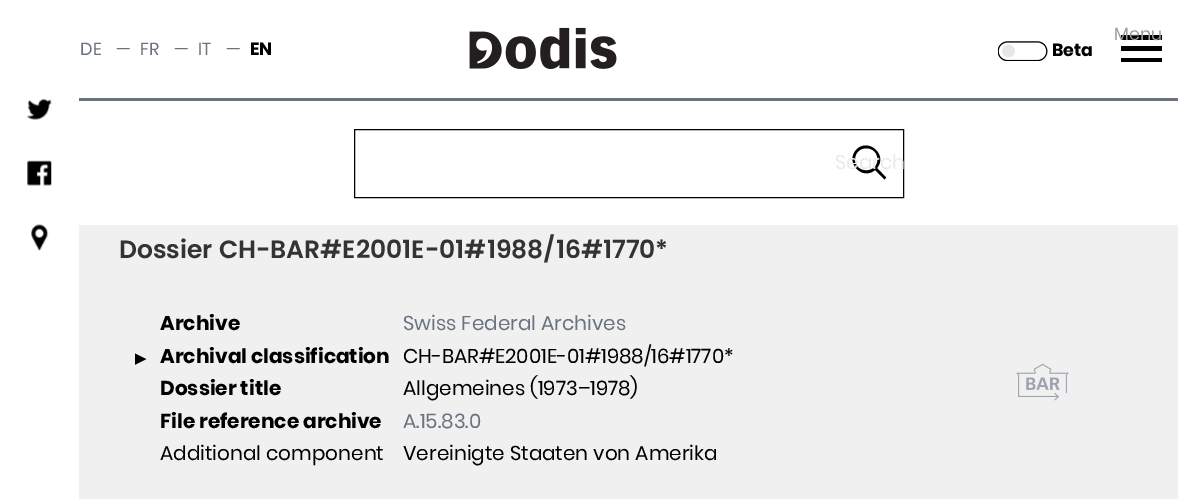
%!PS-Adobe-3.0
%%BoundingBox: 0 0 1178 499
%%LanguageLevel: 3
%%Pages: 1
%%EndComments
%%BeginProlog
/setink { 3 { 255 div 3 1 roll } repeat setrgbcolor } def
/usefont { [ exch dup neg 0 0 3 -1 roll 0 0 ] selectfont } def
/drawtext { setink usefont moveto show } def
/fillbox { setink rectfill } def
/drawimage { 5 dict begin { /h /w /y /x /name } { exch def } forall
  gsave x y translate w h scale
  w h 8 [w 0 0 h 0 0] name (r) file false 3 colorimage grestore end } def
%%EndProlog
%%BeginSetup
<< /PageSize [1178 499] >> setpagedevice
%%EndSetup
%%Page: 1 1
0 499 translate 1 -1 scale
4 setmiterlimit
0 0 1178 499 255 255 255 fillbox
79 98 1099 3 107 114 128 fillbox
(DE) 80 55 /Poppins-Regular 17.5 107 114 128 drawtext
(—) 116 55 /Poppins-Regular 17.5 107 114 128 drawtext
(FR) 140 55 /Poppins-Regular 17.5 107 114 128 drawtext
(—) 174 55 /Poppins-Regular 17.5 107 114 128 drawtext
(IT) 198 55 /Poppins-Regular 17.5 107 114 128 drawtext
(—) 226 55 /Poppins-Regular 17.5 107 114 128 drawtext
(EN) 250 55 /Poppins-Bold 17.5 0 0 0 drawtext
(assets/img1.rgb) 469 27 148 42 drawimage
1162 62 moveto 1121 62 lineto 1121 58 lineto 1162 58 lineto closepath 1162 51 moveto 1121 51 lineto 1121 46 lineto 1162 46 lineto closepath 1162 40 moveto 1121 40 lineto 1121 35 lineto 1162 35 lineto closepath fill
(Menu) 1114 40 /Poppins-Regular 17.5 153 153 153 drawtext
(assets/img2.rgb) 998 41 50 20 drawimage
(Beta) 1052 56 /Poppins-Bold 17.5 0 0 0 drawtext
(assets/img3.rgb) 27 99 25 21 drawimage
(assets/img4.rgb) 27 160 25 26 drawimage
(assets/img5.rgb) 31 224 18 27 drawimage
354.5 129.5 549 68 rectstroke
886 177.5 moveto 877 168 lineto 888 155 868.5 137.5 856.5 149.5 curveto 844.5 162 862 181 875 170 curveto 884.5 179.5 lineto closepath 855 159.5 moveto 855 144.5 877.5 144.5 877.5 159.5 curveto 877.5 174 855 174 855 159.5 curveto closepath fill
(Search) 835 169 /Poppins-Regular 20 234 234 234 drawtext
79 225 1099 274 240 240 240 fillbox
(Dossier CH-BAR#E2001E-01#1988/16#1770*) 119 258 /Poppins-SemiBold 25 51 51 51 drawtext
(Archive) 160 330 /Poppins-Bold 20 0 0 0 drawtext
(Swiss Federal Archives) 403 330 /Poppins-Regular 20 107 114 128 drawtext
(assets/img6.rgb) 1016 363 53 38 drawimage
(▶) 135 363 /DejaVuSans-Regular 15 0 0 0 drawtext
(Archival classification) 160 363 /Poppins-Bold 20 0 0 0 drawtext
(CH-BAR#E2001E-01#1988/16#1770*) 403 363 /Poppins-Regular 20 0 0 0 drawtext
(Dossier title) 160 395 /Poppins-Bold 20 0 0 0 drawtext
(Allgemeines \(1973–1978\)) 403 395 /Poppins-Regular 20 0 0 0 drawtext
(File reference archive) 160 428 /Poppins-Bold 20 0 0 0 drawtext
(A.15.83.0) 403 428 /Poppins-Regular 20 107 114 128 drawtext
(Additional component) 160 460 /Poppins-Regular 20 0 0 0 drawtext
(Vereinigte Staaten von Amerika) 403 460 /Poppins-Regular 20 0 0 0 drawtext
showpage
%%EOF
